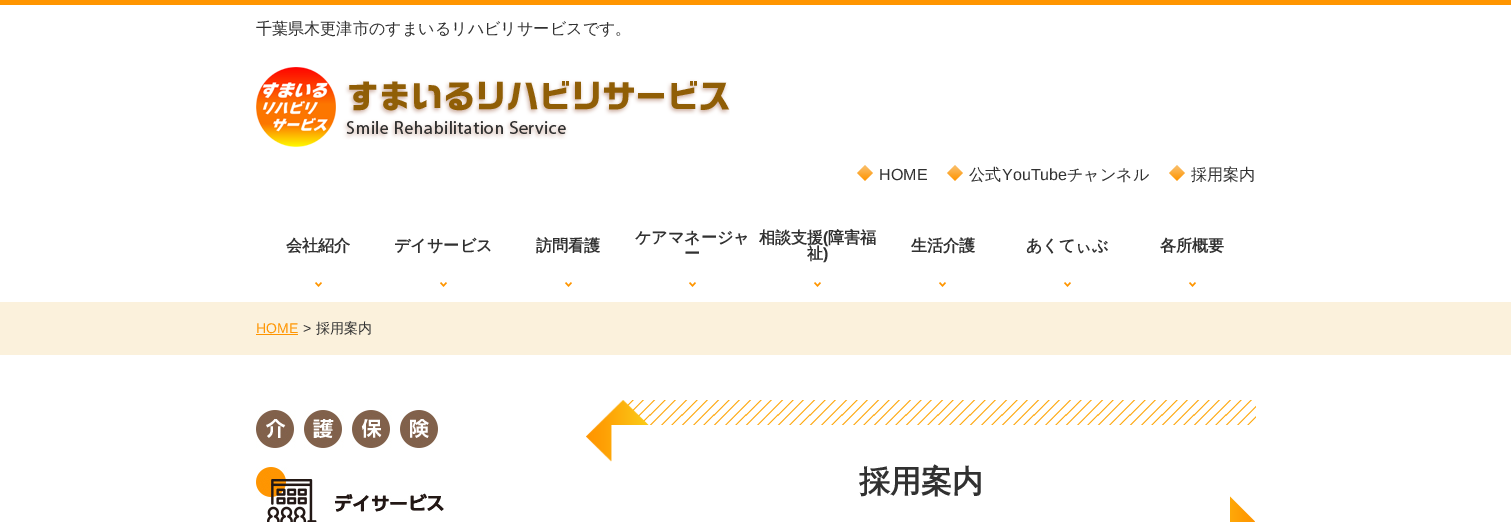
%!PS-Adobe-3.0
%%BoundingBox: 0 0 1511 522
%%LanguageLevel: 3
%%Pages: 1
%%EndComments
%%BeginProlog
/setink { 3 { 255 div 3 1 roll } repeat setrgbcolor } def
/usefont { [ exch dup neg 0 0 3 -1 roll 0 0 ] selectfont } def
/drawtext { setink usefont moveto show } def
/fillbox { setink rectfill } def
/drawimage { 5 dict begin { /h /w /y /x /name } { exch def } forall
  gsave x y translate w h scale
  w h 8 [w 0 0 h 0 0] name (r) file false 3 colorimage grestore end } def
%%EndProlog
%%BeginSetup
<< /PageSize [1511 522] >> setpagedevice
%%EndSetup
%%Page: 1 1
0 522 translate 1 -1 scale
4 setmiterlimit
0 0 1511 522 255 255 255 fillbox
0 0 1511 5 255 149 0 fillbox
(千葉県木更津市のすまいるリハビリサービスです。) 256 34 /WenQuanYiZenHei-Medium 16.1 49 49 49 drawtext
(assets/img1.rgb) 256 67 474 80 drawimage
(assets/img2.rgb) 857 165 16 16 drawimage
(HOME) 879 180 /LiberationSans-Regular 16.1 49 49 49 drawtext
(assets/img2.rgb) 947 165 16 16 drawimage
(公式) 969 180 /WenQuanYiZenHei-Medium 16.1 49 49 49 drawtext
(YouTube) 1002 180 /LiberationSans-Regular 16.1 49 49 49 drawtext
(チャンネル) 1067 180 /WenQuanYiZenHei-Medium 16.1 49 49 49 drawtext
(assets/img2.rgb) 1169 165 16 16 drawimage
(採用案内) 1191 180 /WenQuanYiZenHei-Medium 16.1 49 49 49 drawtext
(assets/img3.rgb) 315 282 7 5 drawimage
(会社紹介) 286 251 /WenQuanYiZenHei-Bold 16.1 49 49 49 drawtext
(assets/img3.rgb) 440 282 7 5 drawimage
(デイサービス) 394 251 /WenQuanYiZenHei-Bold 16.1 49 49 49 drawtext
(assets/img3.rgb) 565 282 7 5 drawimage
(訪問看護) 536 251 /WenQuanYiZenHei-Bold 16.1 49 49 49 drawtext
(assets/img3.rgb) 689 282 7 5 drawimage
(ケアマネージャ) 635 243 /WenQuanYiZenHei-Bold 16.1 49 49 49 drawtext
(ー) 684 259 /WenQuanYiZenHei-Bold 16.1 49 49 49 drawtext
(assets/img3.rgb) 814 282 7 5 drawimage
(相談支援) 759 243 /WenQuanYiZenHei-Bold 16.1 49 49 49 drawtext
(\() 823 243 /LiberationSans-Bold 16.1 49 49 49 drawtext
(障害福) 828 243 /WenQuanYiZenHei-Bold 16.1 49 49 49 drawtext
(祉) 807 259 /WenQuanYiZenHei-Bold 16.1 49 49 49 drawtext
(\)) 823 259 /LiberationSans-Bold 16.1 49 49 49 drawtext
(assets/img3.rgb) 939 282 7 5 drawimage
(生活介護) 911 251 /WenQuanYiZenHei-Bold 16.1 49 49 49 drawtext
(assets/img3.rgb) 1064 282 7 5 drawimage
(あくてぃぶ) 1026 251 /WenQuanYiZenHei-Bold 16.1 49 49 49 drawtext
(assets/img3.rgb) 1189 282 7 5 drawimage
(各所概要) 1160 251 /WenQuanYiZenHei-Bold 16.1 49 49 49 drawtext
0 302 1511 53 251 241 220 fillbox
(HOME) 256 333 /LiberationSans-Regular 14 255 149 0 drawtext
256 334 42 1 255 149 0 fillbox
(>) 303 333 /LiberationSans-Regular 14 49 49 49 drawtext
(採用案内) 316 333 /WenQuanYiZenHei-Medium 14 49 49 49 drawtext
(assets/img4.rgb) 256 410 182 38 drawimage
(assets/img5.rgb) 256 467 188 55 drawimage
(assets/img6.rgb) 586 400 670 122 drawimage
(採用案内) 859 492 /WenQuanYiZenHei-Bold 31 49 49 49 drawtext
showpage
%%EOF
